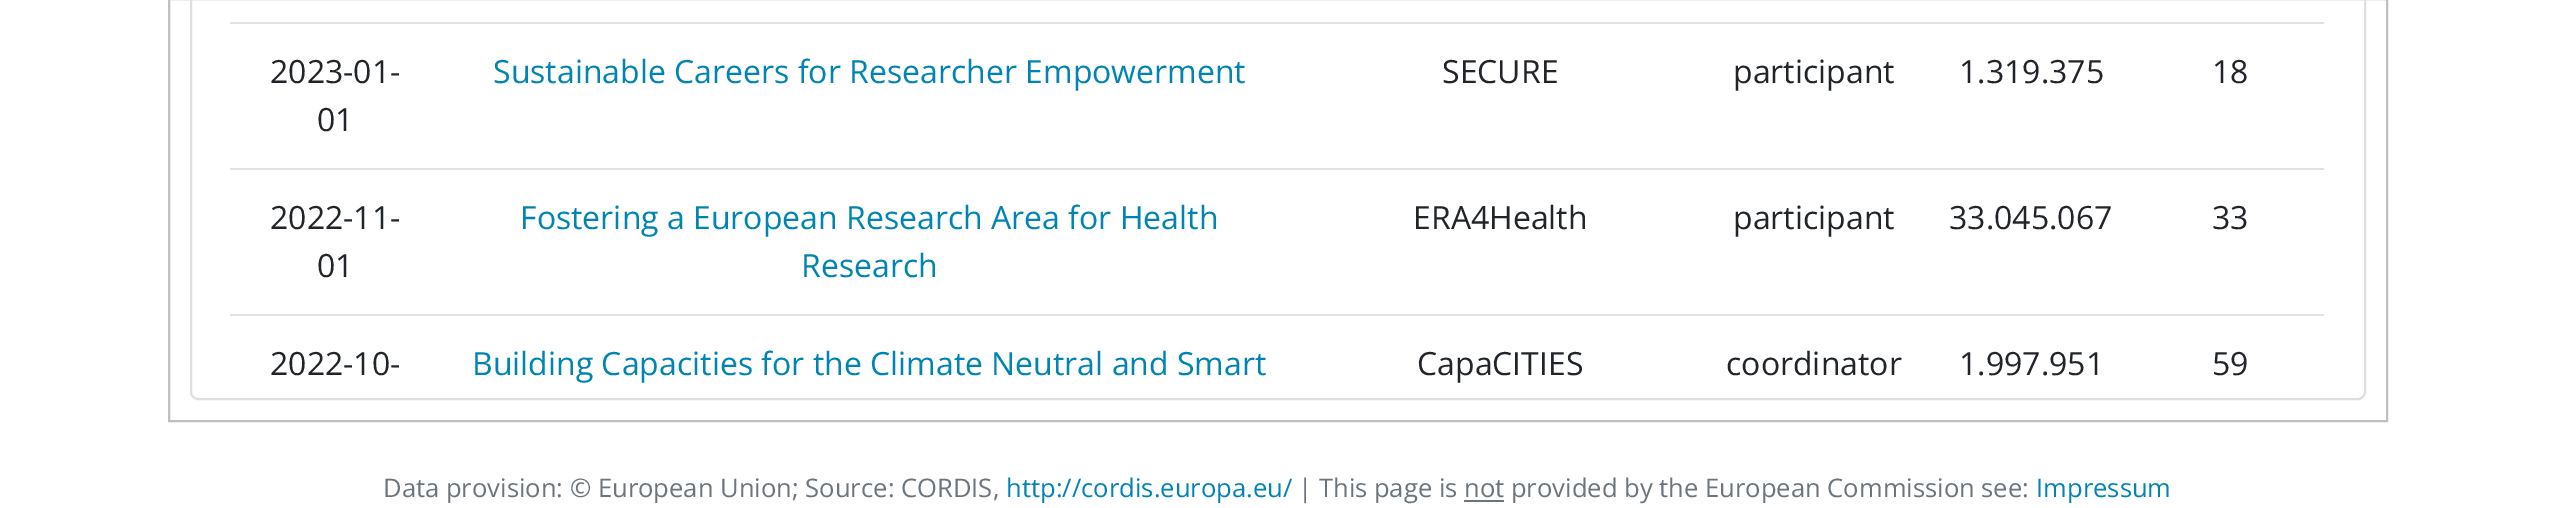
%!PS-Adobe-3.0
%%BoundingBox: 0 0 2554 508
%%LanguageLevel: 3
%%Pages: 1
%%EndComments
%%BeginProlog
/setink { 3 { 255 div 3 1 roll } repeat setrgbcolor } def
/usefont { [ exch dup neg 0 0 3 -1 roll 0 0 ] selectfont } def
/drawtext { setink usefont moveto show } def
/fillbox { setink rectfill } def
/rrect { 5 dict begin { /r /h /w /y /x } { exch def } forall
  x r add y moveto x w add y 2 copy h add r arct x w add y h add x 1 index r arct
  x y h add x y r arct x y 2 copy exch w add exch r arct closepath end } def
%%EndProlog
%%BeginSetup
<< /PageSize [2554 508] >> setpagedevice
%%EndSetup
%%Page: 1 1
0 508 translate 1 -1 scale
4 setmiterlimit
0 0 2554 508 255 255 255 fillbox
192 192 192 setink
2 setlinewidth
169 -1 2218 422 rectstroke
223 223 223 setink
191 -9 2174 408 7 rrect stroke
(2023-01-) 270 83 /OpenSans-Regular 32 33 37 41 drawtext
(01) 317 131 /OpenSans-Regular 32 33 37 41 drawtext
(Sustainable Careers for Researcher Empowerment) 493 83 /OpenSans-Regular 32 0 132 180 drawtext
(SECURE) 1442 83 /OpenSans-Regular 32 33 37 41 drawtext
(participant) 1733 83 /OpenSans-Regular 32 33 37 41 drawtext
(1.319.375) 1959 83 /OpenSans-Regular 32 33 37 41 drawtext
230 22 2094 2 222 226 230 fillbox
(18) 2212 83 /OpenSans-Regular 32 33 37 41 drawtext
(2022-11-) 270 229 /OpenSans-Regular 32 33 37 41 drawtext
(01) 317 277 /OpenSans-Regular 32 33 37 41 drawtext
(Fostering a European Research Area for Health) 520 229 /OpenSans-Regular 32 0 132 180 drawtext
(Research) 801 277 /OpenSans-Regular 32 0 132 180 drawtext
(ERA4Health) 1413 229 /OpenSans-Regular 32 33 37 41 drawtext
(participant) 1733 229 /OpenSans-Regular 32 33 37 41 drawtext
(33.045.067) 1949 229 /OpenSans-Regular 32 33 37 41 drawtext
230 168 2094 2 222 226 230 fillbox
(33) 2212 229 /OpenSans-Regular 32 33 37 41 drawtext
(2022-10-) 270 375 /OpenSans-Regular 32 33 37 41 drawtext
(Building Capacities for the Climate Neutral and Smart) 472 375 /OpenSans-Regular 32 0 132 180 drawtext
(CapaCITIES) 1417 375 /OpenSans-Regular 32 33 37 41 drawtext
(coordinator) 1726 375 /OpenSans-Regular 32 33 37 41 drawtext
(1.997.951) 1959 375 /OpenSans-Regular 32 33 37 41 drawtext
230 314 2094 2 222 226 230 fillbox
(59) 2212 375 /OpenSans-Regular 32 33 37 41 drawtext
(Data provision: © European Union; Source: CORDIS,) 383 497 /OpenSans-Regular 25.6 108 117 125 drawtext
(http://cordis.europa.eu/) 1006 497 /OpenSans-Regular 25.6 0 132 180 drawtext
(| This page is not provided by the European Commission see:) 1298 497 /OpenSans-Regular 25.6 108 117 125 drawtext
(Impressum) 2036 497 /OpenSans-Regular 25.6 0 132 180 drawtext
1464 500 40 2 108 117 125 fillbox
showpage
%%EOF
